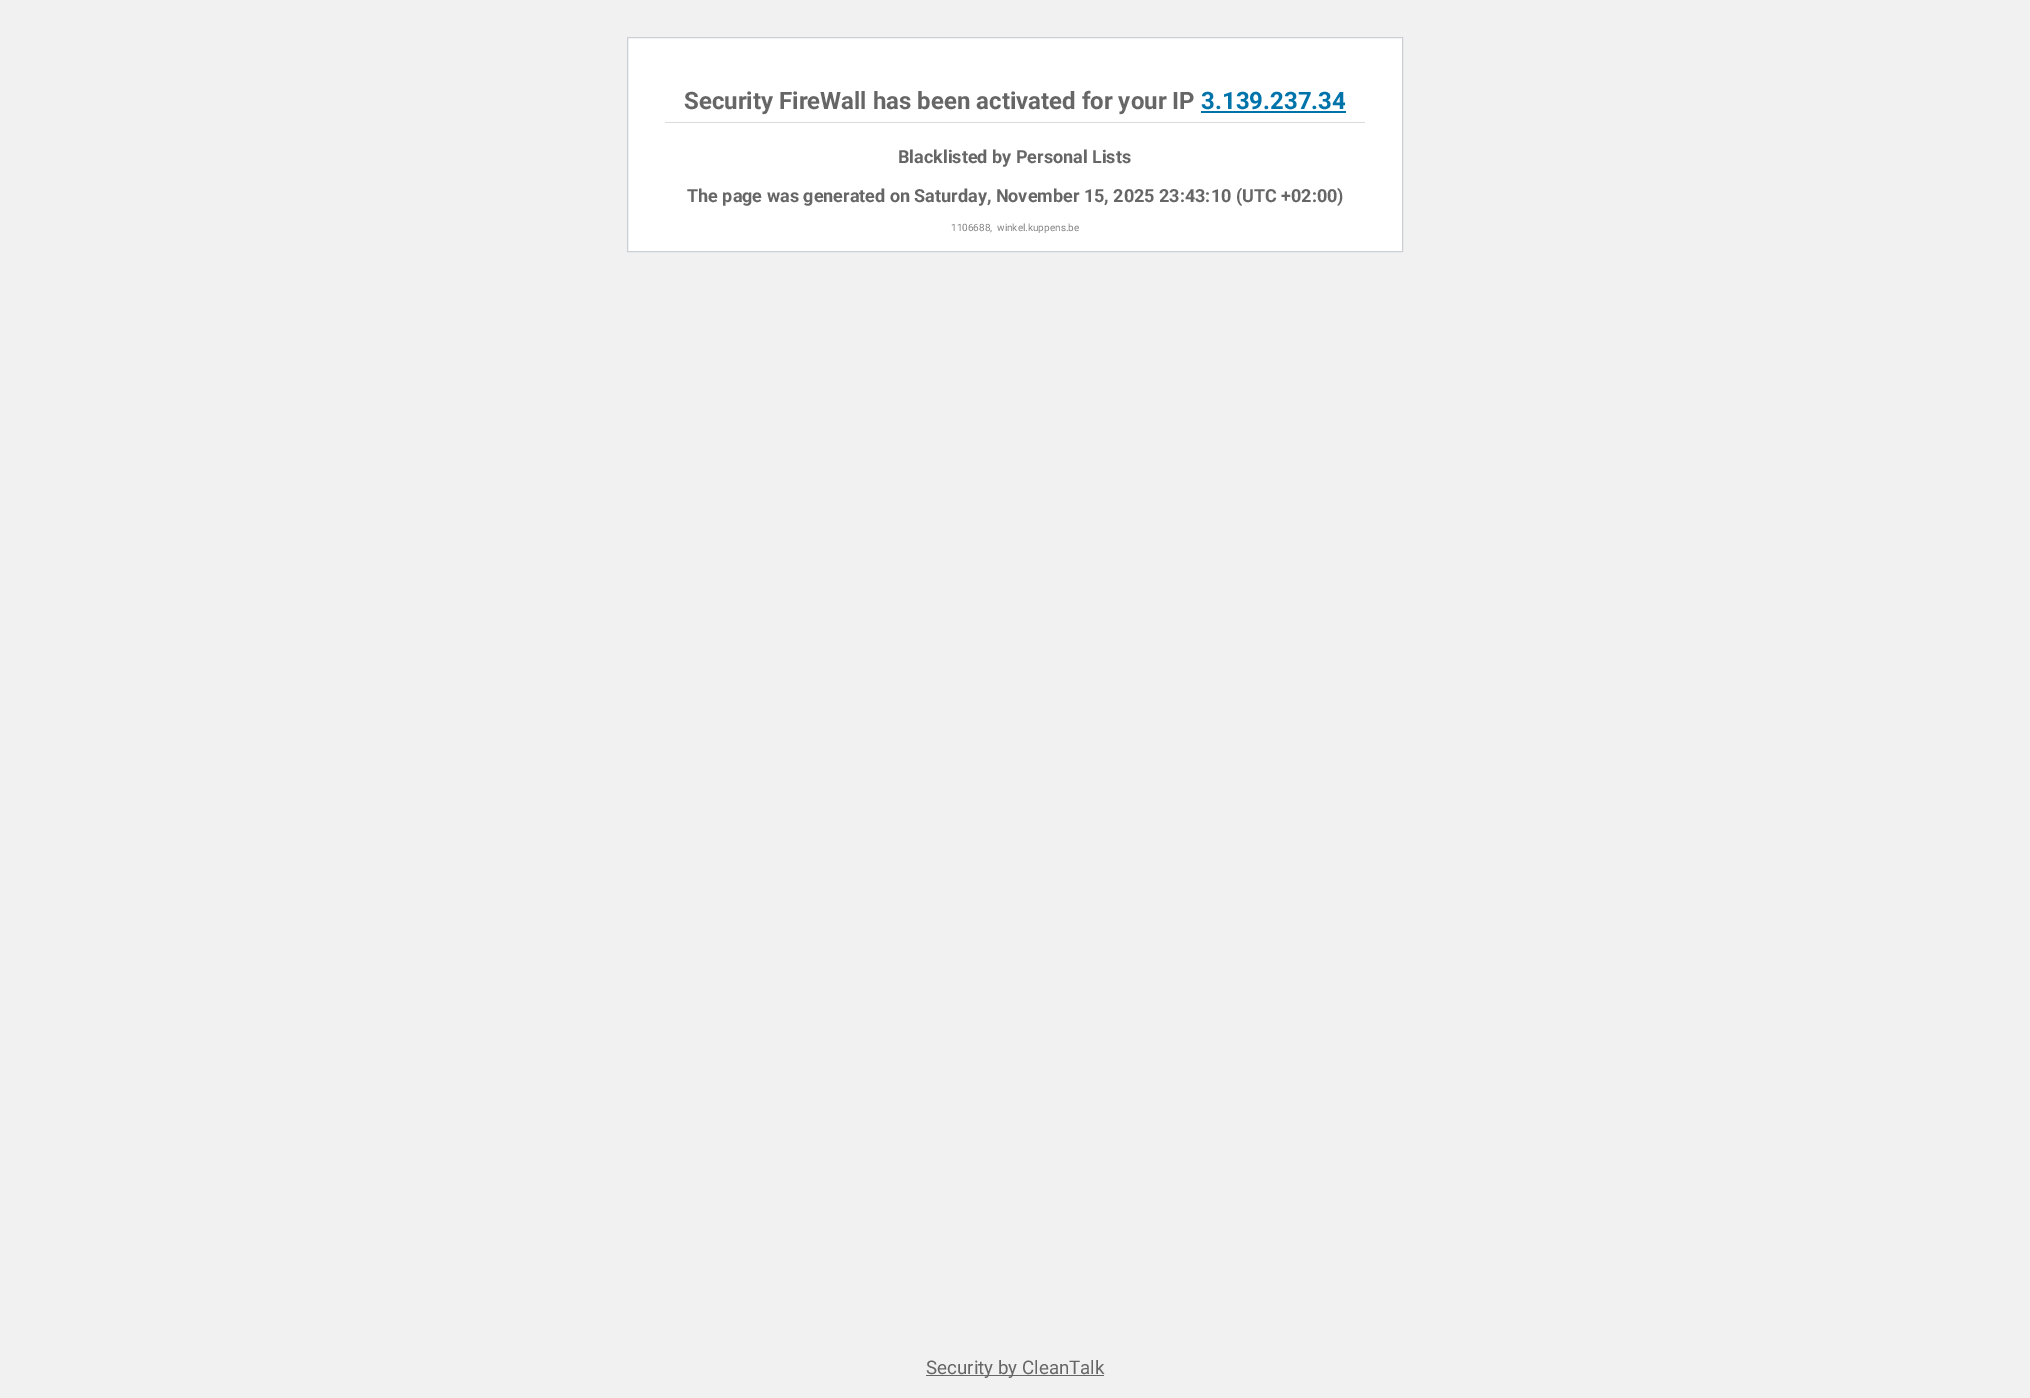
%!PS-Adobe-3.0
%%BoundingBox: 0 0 2030 1398
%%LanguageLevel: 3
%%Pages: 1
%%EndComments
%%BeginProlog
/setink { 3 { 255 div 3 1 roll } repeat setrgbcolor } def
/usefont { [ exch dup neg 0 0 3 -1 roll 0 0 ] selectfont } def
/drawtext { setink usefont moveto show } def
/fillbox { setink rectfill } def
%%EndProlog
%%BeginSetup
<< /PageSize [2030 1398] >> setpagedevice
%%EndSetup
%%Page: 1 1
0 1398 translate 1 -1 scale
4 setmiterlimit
0 0 2030 1398 241 241 241 fillbox
255 255 255 setink
627.5 37.5 moveto 1402.5 37.5 lineto 1402.5 251.5 lineto 627.5 251.5 lineto closepath gsave fill grestore
204 208 212 setink
stroke
665 122 700 1 218 218 218 fillbox
(Security FireWall has been activated for your IP) 684 109 /Roboto-Bold 24 102 102 102 drawtext
(3.139.237.34) 1201 109 /Roboto-Bold 24 0 115 170 drawtext
1201 111 145 2 0 115 170 fillbox
(Blacklisted by Personal Lists) 898 163 /Roboto-Bold 18 102 102 102 drawtext
(The page was generated on Saturday, November 15, 2025 23:43:10 \(UTC +02:00\)) 687 202 /Roboto-Bold 18 102 102 102 drawtext
(1106688,) 951 231 /Roboto-Regular 10 128 128 128 drawtext
(winkel.kuppens.be) 997 231 /Roboto-Regular 10 128 128 128 drawtext
926 1375 178 1 102 102 102 fillbox
(Security by CleanTalk) 926 1374 /Roboto-Regular 18.75 102 102 102 drawtext
showpage
%%EOF
